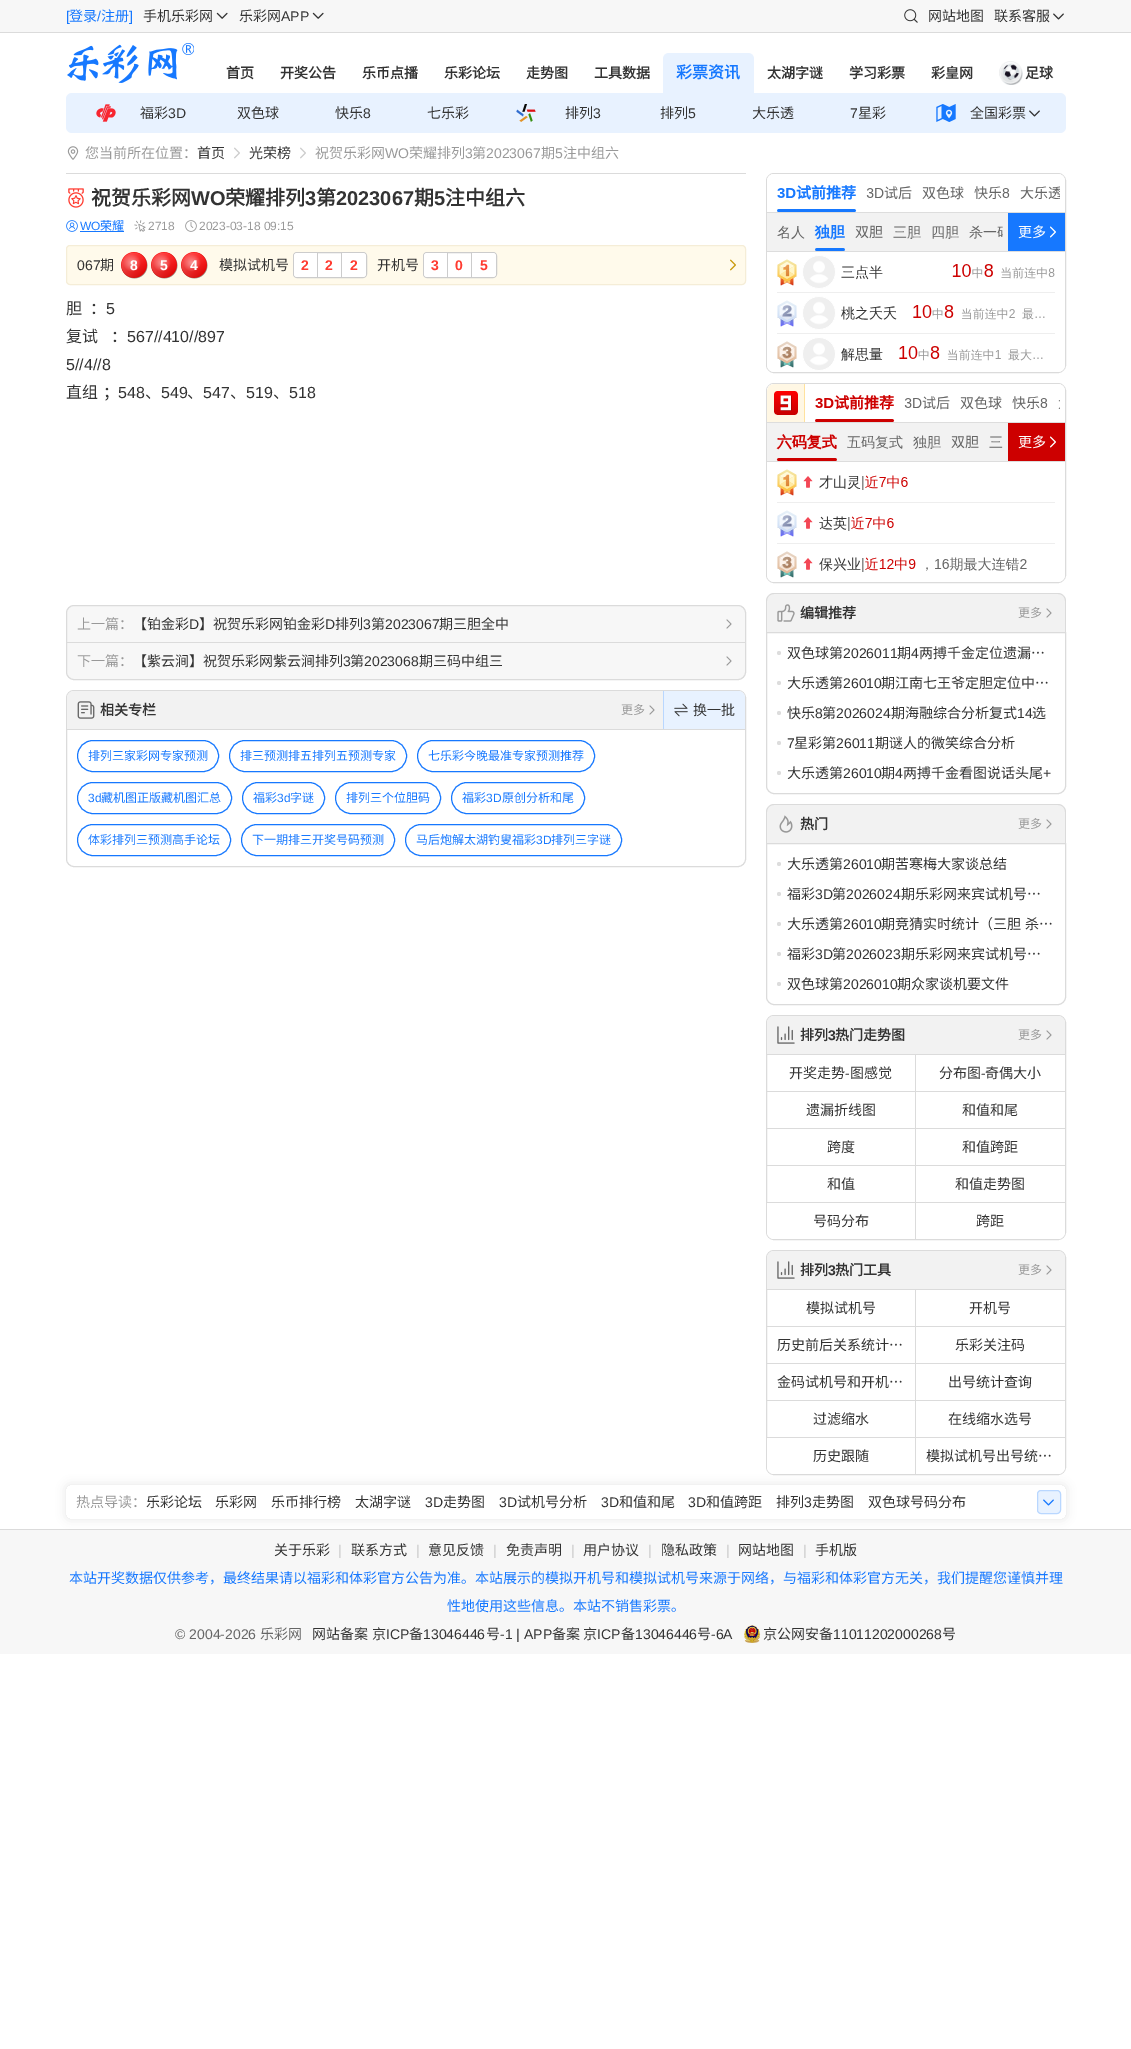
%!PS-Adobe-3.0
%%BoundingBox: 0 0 1131 2049
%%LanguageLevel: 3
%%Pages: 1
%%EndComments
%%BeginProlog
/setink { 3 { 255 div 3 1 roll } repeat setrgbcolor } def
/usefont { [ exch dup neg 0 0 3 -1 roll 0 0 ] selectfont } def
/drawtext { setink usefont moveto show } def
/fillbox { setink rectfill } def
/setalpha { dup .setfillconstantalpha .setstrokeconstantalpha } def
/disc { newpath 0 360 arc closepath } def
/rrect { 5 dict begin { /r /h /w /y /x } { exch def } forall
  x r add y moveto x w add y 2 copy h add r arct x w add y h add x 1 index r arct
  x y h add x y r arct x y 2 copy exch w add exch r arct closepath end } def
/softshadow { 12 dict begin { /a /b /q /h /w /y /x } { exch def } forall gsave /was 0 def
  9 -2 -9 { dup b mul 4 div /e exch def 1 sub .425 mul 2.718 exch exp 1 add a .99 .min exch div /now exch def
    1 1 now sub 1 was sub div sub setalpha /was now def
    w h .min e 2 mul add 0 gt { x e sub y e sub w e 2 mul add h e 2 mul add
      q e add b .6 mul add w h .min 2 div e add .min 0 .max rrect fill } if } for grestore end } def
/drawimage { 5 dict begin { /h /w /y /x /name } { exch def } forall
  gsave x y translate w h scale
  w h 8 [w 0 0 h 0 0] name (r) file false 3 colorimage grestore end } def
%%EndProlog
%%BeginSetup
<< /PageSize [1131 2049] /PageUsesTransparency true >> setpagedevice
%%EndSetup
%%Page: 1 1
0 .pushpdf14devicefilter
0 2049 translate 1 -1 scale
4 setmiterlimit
0 0 1131 2049 255 255 255 fillbox
0 0 1131 32 247 247 247 fillbox
0 32 1131 1 219 219 219 fillbox
([) 66 21 /LiberationSans-Regular 14 22 120 255 drawtext
(登录) 69 21 /NotoSansCJKSC-Regular 14 22 120 255 drawtext
(/) 97 21 /LiberationSans-Regular 14 22 120 255 drawtext
(注册) 101 21 /NotoSansCJKSC-Regular 14 22 120 255 drawtext
(]) 129 21 /LiberationSans-Regular 14 22 120 255 drawtext
(手机乐彩网) 143 21 /NotoSansCJKSC-Regular 14 51 51 51 drawtext
(assets/img1.rgb) 216 12 12 7 drawimage
(乐彩网) 239 21 /NotoSansCJKSC-Regular 14 51 51 51 drawtext
(APP) 281 21 /LiberationSans-Regular 14 51 51 51 drawtext
(assets/img2.rgb) 312 12 12 7 drawimage
(assets/img3.rgb) 904 9 14 14 drawimage
(网站地图) 928 21 /NotoSansCJKSC-Regular 14 51 51 51 drawtext
(联系客服) 994 21 /NotoSansCJKSC-Regular 14 51 51 51 drawtext
(assets/img4.rgb) 1053 13 11 7 drawimage
(assets/img5.rgb) 67 43 127 40 drawimage
(首页) 226 78 /NotoSansCJKSC-Bold 14 51 51 51 drawtext
(开奖公告) 280 78 /NotoSansCJKSC-Bold 14 51 51 51 drawtext
(乐币点播) 362 78 /NotoSansCJKSC-Bold 14 51 51 51 drawtext
(乐彩论坛) 444 78 /NotoSansCJKSC-Bold 14 51 51 51 drawtext
(走势图) 526 78 /NotoSansCJKSC-Bold 14 51 51 51 drawtext
(工具数据) 594 78 /NotoSansCJKSC-Bold 14 51 51 51 drawtext
232 242 255 setink
669 53 moveto 748 53 lineto 751.5 53 754 55.5 754 59 curveto 754 93 lineto 663 93 lineto 663 59 lineto 663 55.5 665.5 53 669 53 curveto closepath fill
(彩票资讯) 676 78 /NotoSansCJKSC-Bold 16 22 120 255 drawtext
(太湖字谜) 767 78 /NotoSansCJKSC-Bold 14 51 51 51 drawtext
(学习彩票) 849 78 /NotoSansCJKSC-Bold 14 51 51 51 drawtext
(彩皇网) 931 78 /NotoSansCJKSC-Bold 14 51 51 51 drawtext
(assets/img6.rgb) 999 61 24 24 drawimage
(足球) 1025 78 /NotoSansCJKSC-Bold 14 51 51 51 drawtext
232 242 255 setink
66 93 1000 40 6 rrect fill
(assets/img7.rgb) 96 104 20 18 drawimage
(福彩) 140 118 /NotoSansCJKSC-Regular 14 51 51 51 drawtext
(3D) 168 118 /LiberationSans-Regular 14 51 51 51 drawtext
(双色球) 237 118 /NotoSansCJKSC-Regular 14 51 51 51 drawtext
(快乐) 335 118 /NotoSansCJKSC-Regular 14 51 51 51 drawtext
(8) 363 118 /LiberationSans-Regular 14 51 51 51 drawtext
(七乐彩) 427 118 /NotoSansCJKSC-Regular 14 51 51 51 drawtext
(assets/img8.rgb) 516 104 20 18 drawimage
(排列) 565 118 /NotoSansCJKSC-Regular 14 51 51 51 drawtext
(3) 593 118 /LiberationSans-Regular 14 51 51 51 drawtext
(排列) 660 118 /NotoSansCJKSC-Regular 14 51 51 51 drawtext
(5) 688 118 /LiberationSans-Regular 14 51 51 51 drawtext
(大乐透) 752 118 /NotoSansCJKSC-Regular 14 51 51 51 drawtext
(7) 850 118 /LiberationSans-Regular 14 51 51 51 drawtext
(星彩) 858 118 /NotoSansCJKSC-Regular 14 51 51 51 drawtext
(assets/img9.rgb) 936 104 20 18 drawimage
(全国彩票) 970 118 /NotoSansCJKSC-Regular 14 51 51 51 drawtext
(assets/img10.rgb) 1029 110 11 7 drawimage
(assets/img11.rgb) 67 146 12 14 drawimage
(您当前所在位置：) 85 158 /NotoSansCJKSC-Regular 14 153 153 153 drawtext
(首页) 197 158 /NotoSansCJKSC-Regular 14 51 51 51 drawtext
(assets/img12.rgb) 234 147 6 12 drawimage
(光荣榜) 249 158 /NotoSansCJKSC-Regular 14 51 51 51 drawtext
(assets/img12.rgb) 300 147 6 12 drawimage
(祝贺乐彩网) 315 158 /NotoSansCJKSC-Regular 14 153 153 153 drawtext
(WO) 385 158 /LiberationSans-Regular 14 153 153 153 drawtext
(荣耀排列) 409 158 /NotoSansCJKSC-Regular 14 153 153 153 drawtext
(3) 465 158 /LiberationSans-Regular 14 153 153 153 drawtext
(第) 472 158 /NotoSansCJKSC-Regular 14 153 153 153 drawtext
(2023067) 486 158 /LiberationSans-Regular 14 153 153 153 drawtext
(期) 541 158 /NotoSansCJKSC-Regular 14 153 153 153 drawtext
(5) 555 158 /LiberationSans-Regular 14 153 153 153 drawtext
(注中组六) 563 158 /NotoSansCJKSC-Regular 14 153 153 153 drawtext
66 173 680 1 219 219 219 fillbox
(assets/img13.rgb) 68 188 16 20 drawimage
(祝贺乐彩网) 91 205 /NotoSansCJKSC-Bold 20 51 51 51 drawtext
(WO) 191 205 /LiberationSans-Bold 20 51 51 51 drawtext
(荣耀排列) 225 205 /NotoSansCJKSC-Bold 20 51 51 51 drawtext
(3) 305 205 /LiberationSans-Bold 20 51 51 51 drawtext
(第) 316 205 /NotoSansCJKSC-Bold 20 51 51 51 drawtext
(2023067) 336 205 /LiberationSans-Bold 20 51 51 51 drawtext
(期) 414 205 /NotoSansCJKSC-Bold 20 51 51 51 drawtext
(5) 434 205 /LiberationSans-Bold 20 51 51 51 drawtext
(注中组六) 445 205 /NotoSansCJKSC-Bold 20 51 51 51 drawtext
(assets/img14.rgb) 66 220 12 12 drawimage
(WO) 80 230 /LiberationSans-Regular 12 22 120 255 drawtext
80 231 44 1 22 120 255 fillbox
(荣耀) 100 230 /NotoSansCJKSC-Regular 12 22 120 255 drawtext
(assets/img15.rgb) 134 220 12 12 drawimage
(2718) 148 230 /LiberationSans-Regular 12 153 153 153 drawtext
(assets/img16.rgb) 185 220 12 12 drawimage
(2023-03-18 09:15) 199 230 /LiberationSans-Regular 12 153 153 153 drawtext
255 250 235 setink
66.5 245.5 679 39 3.5 rrect gsave fill grestore
245 237 215 setink
stroke
(067) 77 270 /LiberationSans-Regular 14 51 51 51 drawtext
(期) 100 270 /NotoSansCJKSC-Regular 14 51 51 51 drawtext
(assets/img17.rgb) 121 252 27 27 drawimage
(8) 130 270 /LiberationSans-Bold 14 255 255 255 drawtext
(assets/img17.rgb) 151 252 27 27 drawimage
(5) 160 270 /LiberationSans-Bold 14 255 255 255 drawtext
(assets/img17.rgb) 181 252 27 27 drawimage
(4) 190 270 /LiberationSans-Bold 14 255 255 255 drawtext
(模拟试机号) 219 270 /NotoSansCJKSC-Regular 14 51 51 51 drawtext
255 255 255 setink
293.5 252.5 73 25 3.5 rrect gsave fill grestore
204 204 204 setink
stroke
255 255 255 setink
297 253 moveto 318 253 lineto 318 277 lineto 297 277 lineto 295.5 277 294 275.5 294 274 curveto 294 256 lineto 294 254.5 295.5 253 297 253 curveto closepath fill
317 253 1 24 204 204 204 fillbox
(2) 301 270 /LiberationSans-Bold 14 255 59 48 drawtext
341 253 1 24 204 204 204 fillbox
(2) 325 270 /LiberationSans-Bold 14 255 59 48 drawtext
255 255 255 setink
342 253 moveto 363 253 lineto 364.5 253 366 254.5 366 256 curveto 366 274 lineto 366 275.5 364.5 277 363 277 curveto 342 277 lineto closepath fill
(2) 350 270 /LiberationSans-Bold 14 255 59 48 drawtext
(开机号) 377 270 /NotoSansCJKSC-Regular 14 51 51 51 drawtext
255 255 255 setink
423.5 252.5 73 25 3.5 rrect gsave fill grestore
204 204 204 setink
stroke
255 255 255 setink
427 253 moveto 448 253 lineto 448 277 lineto 427 277 lineto 425.5 277 424 275.5 424 274 curveto 424 256 lineto 424 254.5 425.5 253 427 253 curveto closepath fill
447 253 1 24 204 204 204 fillbox
(3) 431 270 /LiberationSans-Bold 14 255 59 48 drawtext
471 253 1 24 204 204 204 fillbox
(0) 455 270 /LiberationSans-Bold 14 255 59 48 drawtext
255 255 255 setink
472 253 moveto 493 253 lineto 494.5 253 496 254.5 496 256 curveto 496 274 lineto 496 275.5 494.5 277 493 277 curveto 472 277 lineto closepath fill
(5) 480 270 /LiberationSans-Bold 14 255 59 48 drawtext
(assets/img18.rgb) 730 259 6 12 drawimage
(胆) 66 314 /NotoSansCJKSC-Regular 16 51 51 51 drawtext
(：) 90 314 /NotoSansCJKSC-Regular 16 51 51 51 drawtext
(5) 106 314 /LiberationSans-Regular 16 51 51 51 drawtext
(复试) 66 342 /NotoSansCJKSC-Regular 16 51 51 51 drawtext
(：) 111 342 /NotoSansCJKSC-Regular 16 51 51 51 drawtext
(567//410//897) 127 342 /LiberationSans-Regular 16 51 51 51 drawtext
(5//4//8) 66 370 /LiberationSans-Regular 16 51 51 51 drawtext
/NotoSansCJKSC-Regular 16 usefont
66 398 moveto 1 0 32 (直组 ；) widthshow
(548) 118 398 /LiberationSans-Regular 16 51 51 51 drawtext
(、) 145 398 /NotoSansCJKSC-Regular 16 51 51 51 drawtext
(549) 161 398 /LiberationSans-Regular 16 51 51 51 drawtext
(、) 187 398 /NotoSansCJKSC-Regular 16 51 51 51 drawtext
(547) 203 398 /LiberationSans-Regular 16 51 51 51 drawtext
(、) 230 398 /NotoSansCJKSC-Regular 16 51 51 51 drawtext
(519) 246 398 /LiberationSans-Regular 16 51 51 51 drawtext
(、) 273 398 /NotoSansCJKSC-Regular 16 51 51 51 drawtext
(518) 289 398 /LiberationSans-Regular 16 51 51 51 drawtext
247 247 247 setink
66.5 605.5 679 74 7.5 rrect gsave fill grestore
219 219 219 setink
stroke
67 642 678 1 219 219 219 fillbox
(上一篇：) 77 629 /NotoSansCJKSC-Regular 14 153 153 153 drawtext
(【铂金彩) 133 629 /NotoSansCJKSC-Regular 14 51 51 51 drawtext
(D) 189 629 /LiberationSans-Regular 14 51 51 51 drawtext
(】祝贺乐彩网铂金彩) 199 629 /NotoSansCJKSC-Regular 14 51 51 51 drawtext
(D) 325 629 /LiberationSans-Regular 14 51 51 51 drawtext
(排列) 335 629 /NotoSansCJKSC-Regular 14 51 51 51 drawtext
(3) 363 629 /LiberationSans-Regular 14 51 51 51 drawtext
(第) 371 629 /NotoSansCJKSC-Regular 14 51 51 51 drawtext
(2023067) 385 629 /LiberationSans-Regular 14 51 51 51 drawtext
(期三胆全中) 439 629 /NotoSansCJKSC-Regular 14 51 51 51 drawtext
(assets/img19.rgb) 726 619 6 10 drawimage
(下一篇：) 77 666 /NotoSansCJKSC-Regular 14 153 153 153 drawtext
(【紫云涧】祝贺乐彩网紫云涧排列) 133 666 /NotoSansCJKSC-Regular 14 51 51 51 drawtext
(3) 343 666 /LiberationSans-Regular 14 51 51 51 drawtext
(第) 350 666 /NotoSansCJKSC-Regular 14 51 51 51 drawtext
(2023068) 364 666 /LiberationSans-Regular 14 51 51 51 drawtext
(期三码中组三) 419 666 /NotoSansCJKSC-Regular 14 51 51 51 drawtext
(assets/img19.rgb) 726 656 6 10 drawimage
219 219 219 setink
66.5 690.5 679 176 7.5 rrect stroke
242 242 242 setink
74 691 moveto 738 691 lineto 742 691 745 694 745 698 curveto 745 730 lineto 67 730 lineto 67 698 lineto 67 694 70 691 74 691 curveto closepath fill
67 729 678 1 219 219 219 fillbox
(assets/img20.rgb) 77 701 18 18 drawimage
(相关专栏) 100 715 /NotoSansCJKSC-Bold 14 51 51 51 drawtext
(更多) 621 714 /NotoSansCJKSC-Regular 12 153 153 153 drawtext
(assets/img21.rgb) 649 705 6 10 drawimage
232 242 255 setink
663 691 moveto 738 691 lineto 742 691 745 694 745 698 curveto 745 729 lineto 663 729 lineto closepath fill
663 691 1 38 185 215 255 fillbox
(assets/img22.rgb) 674 703 14 14 drawimage
(换一批) 693 715 /NotoSansCJKSC-Regular 14 51 51 51 drawtext
22 120 255 setink
77.5 740.5 141 31 15.5 rrect stroke
(排列三家彩网专家预测) 88 760 /NotoSansCJKSC-Regular 12 22 120 255 drawtext
229.5 740.5 177 31 15.5 rrect stroke
(排三预测排五排列五预测专家) 240 760 /NotoSansCJKSC-Regular 12 22 120 255 drawtext
417.5 740.5 177 31 15.5 rrect stroke
(七乐彩今晚最准专家预测推荐) 428 760 /NotoSansCJKSC-Regular 12 22 120 255 drawtext
77.5 782.5 154 31 15.5 rrect stroke
(3d) 88 802 /LiberationSans-Regular 12 22 120 255 drawtext
(藏机图正版藏机图汇总) 101 802 /NotoSansCJKSC-Regular 12 22 120 255 drawtext
242.5 782.5 82 31 15.5 rrect stroke
(福彩) 253 802 /NotoSansCJKSC-Regular 12 22 120 255 drawtext
(3d) 277 802 /LiberationSans-Regular 12 22 120 255 drawtext
(字谜) 290 802 /NotoSansCJKSC-Regular 12 22 120 255 drawtext
335.5 782.5 105 31 15.5 rrect stroke
(排列三个位胆码) 346 802 /NotoSansCJKSC-Regular 12 22 120 255 drawtext
451.5 782.5 133 31 15.5 rrect stroke
(福彩) 462 802 /NotoSansCJKSC-Regular 12 22 120 255 drawtext
(3D) 486 802 /LiberationSans-Regular 12 22 120 255 drawtext
(原创分析和尾) 502 802 /NotoSansCJKSC-Regular 12 22 120 255 drawtext
77.5 824.5 153 31 15.5 rrect stroke
(体彩排列三预测高手论坛) 88 844 /NotoSansCJKSC-Regular 12 22 120 255 drawtext
241.5 824.5 153 31 15.5 rrect stroke
(下一期排三开奖号码预测) 252 844 /NotoSansCJKSC-Regular 12 22 120 255 drawtext
405.5 824.5 216 31 15.5 rrect stroke
(马后炮解太湖钓叟福彩) 416 844 /NotoSansCJKSC-Regular 12 22 120 255 drawtext
(3D) 536 844 /LiberationSans-Regular 12 22 120 255 drawtext
(排列三字谜) 551 844 /NotoSansCJKSC-Regular 12 22 120 255 drawtext
219 219 219 setink
766.5 173.5 299 199 7.5 rrect stroke
(assets/img23.rgb) 767 174 298 198 drawimage
766.5 383.5 299 199 7.5 rrect stroke
(assets/img24.rgb) 767 384 298 198 drawimage
242 242 242 setink
774 593 moveto 1058 593 lineto 1062.5 593 1066 596.5 1066 601 curveto 1066 632 lineto 766 632 lineto 766 601 lineto 766 596.5 769.5 593 774 593 curveto closepath fill
219 219 219 setink
774 593 moveto 1058 593 lineto 1062 593 1066 597 1066 601 curveto 1066 632 lineto 766 632 lineto 766 601 lineto 766 597 770 593 774 593 curveto closepath 774 594 moveto 1058 594 lineto 1062 594 1065 597 1065 601 curveto 1065 632 lineto 767 632 lineto 767 601 lineto 767 597 770 594 774 594 curveto closepath eofill
(assets/img25.rgb) 777 604 18 18 drawimage
(编辑推荐) 800 618 /NotoSansCJKSC-Bold 14 51 51 51 drawtext
(更多) 1018 617 /NotoSansCJKSC-Regular 12 153 153 153 drawtext
(assets/img21.rgb) 1046 608 6 10 drawimage
219 219 219 setink
766.5 632.5 moveto 1065.5 632.5 lineto 1065.5 786 lineto 1065.5 790 1062 793.5 1058 793.5 curveto 774 793.5 lineto 770 793.5 766.5 790 766.5 786 curveto closepath stroke
221 221 221 setink
779 653 2 disc fill
(双色球第) 787 658 /NotoSansCJKSC-Regular 14 51 51 51 drawtext
(2026011) 843 658 /LiberationSans-Regular 14 51 51 51 drawtext
(期) 897 658 /NotoSansCJKSC-Regular 14 51 51 51 drawtext
(4) 911 658 /LiberationSans-Regular 14 51 51 51 drawtext
(两搏千金定位遗漏…) 919 658 /NotoSansCJKSC-Regular 14 51 51 51 drawtext
221 221 221 setink
779 683 2 disc fill
(大乐透第) 787 688 /NotoSansCJKSC-Regular 14 51 51 51 drawtext
(26010) 843 688 /LiberationSans-Regular 14 51 51 51 drawtext
(期江南七王爷定胆定位中…) 881 688 /NotoSansCJKSC-Regular 14 51 51 51 drawtext
221 221 221 setink
779 713 2 disc fill
(快乐) 787 718 /NotoSansCJKSC-Regular 14 51 51 51 drawtext
(8) 815 718 /LiberationSans-Regular 14 51 51 51 drawtext
(第) 822 718 /NotoSansCJKSC-Regular 14 51 51 51 drawtext
(2026024) 836 718 /LiberationSans-Regular 14 51 51 51 drawtext
(期海融综合分析复式) 891 718 /NotoSansCJKSC-Regular 14 51 51 51 drawtext
(14) 1017 718 /LiberationSans-Regular 14 51 51 51 drawtext
(选) 1032 718 /NotoSansCJKSC-Regular 14 51 51 51 drawtext
221 221 221 setink
779 743 2 disc fill
(7) 787 748 /LiberationSans-Regular 14 51 51 51 drawtext
(星彩第) 794 748 /NotoSansCJKSC-Regular 14 51 51 51 drawtext
(26011) 836 748 /LiberationSans-Regular 14 51 51 51 drawtext
(期谜人的微笑综合分析) 875 748 /NotoSansCJKSC-Regular 14 51 51 51 drawtext
221 221 221 setink
779 773 2 disc fill
(大乐透第) 787 778 /NotoSansCJKSC-Regular 14 51 51 51 drawtext
(26010) 843 778 /LiberationSans-Regular 14 51 51 51 drawtext
(期) 881 778 /NotoSansCJKSC-Regular 14 51 51 51 drawtext
(4) 895 778 /LiberationSans-Regular 14 51 51 51 drawtext
(两搏千金看图说话头尾) 903 778 /NotoSansCJKSC-Regular 14 51 51 51 drawtext
(+) 1043 778 /LiberationSans-Regular 14 51 51 51 drawtext
242 242 242 setink
774 804 moveto 1058 804 lineto 1062.5 804 1066 807.5 1066 812 curveto 1066 843 lineto 766 843 lineto 766 812 lineto 766 807.5 769.5 804 774 804 curveto closepath fill
219 219 219 setink
774 804 moveto 1058 804 lineto 1062 804 1066 808 1066 812 curveto 1066 843 lineto 766 843 lineto 766 812 lineto 766 808 770 804 774 804 curveto closepath 774 805 moveto 1058 805 lineto 1062 805 1065 808 1065 812 curveto 1065 843 lineto 767 843 lineto 767 812 lineto 767 808 770 805 774 805 curveto closepath eofill
(assets/img26.rgb) 779 815 14 18 drawimage
(热门) 800 829 /NotoSansCJKSC-Bold 14 51 51 51 drawtext
(更多) 1018 828 /NotoSansCJKSC-Regular 12 153 153 153 drawtext
(assets/img21.rgb) 1046 819 6 10 drawimage
219 219 219 setink
766.5 843.5 moveto 1065.5 843.5 lineto 1065.5 997 lineto 1065.5 1001 1062 1004.5 1058 1004.5 curveto 774 1004.5 lineto 770 1004.5 766.5 1001 766.5 997 curveto closepath stroke
221 221 221 setink
779 864 2 disc fill
(大乐透第) 787 869 /NotoSansCJKSC-Regular 14 51 51 51 drawtext
(26010) 843 869 /LiberationSans-Regular 14 51 51 51 drawtext
(期苦寒梅大家谈总结) 881 869 /NotoSansCJKSC-Regular 14 51 51 51 drawtext
221 221 221 setink
779 894 2 disc fill
(福彩) 787 899 /NotoSansCJKSC-Regular 14 51 51 51 drawtext
(3D) 815 899 /LiberationSans-Regular 14 51 51 51 drawtext
(第) 832 899 /NotoSansCJKSC-Regular 14 51 51 51 drawtext
(2026024) 846 899 /LiberationSans-Regular 14 51 51 51 drawtext
(期乐彩网来宾试机号…) 901 899 /NotoSansCJKSC-Regular 14 51 51 51 drawtext
221 221 221 setink
779 924 2 disc fill
(大乐透第) 787 929 /NotoSansCJKSC-Regular 14 51 51 51 drawtext
(26010) 843 929 /LiberationSans-Regular 14 51 51 51 drawtext
/NotoSansCJKSC-Regular 14 usefont
881 929 moveto 1 0 32 (期竞猜实时统计（三胆 杀…) widthshow
221 221 221 setink
779 954 2 disc fill
(福彩) 787 959 /NotoSansCJKSC-Regular 14 51 51 51 drawtext
(3D) 815 959 /LiberationSans-Regular 14 51 51 51 drawtext
(第) 832 959 /NotoSansCJKSC-Regular 14 51 51 51 drawtext
(2026023) 846 959 /LiberationSans-Regular 14 51 51 51 drawtext
(期乐彩网来宾试机号…) 901 959 /NotoSansCJKSC-Regular 14 51 51 51 drawtext
221 221 221 setink
779 984 2 disc fill
(双色球第) 787 989 /NotoSansCJKSC-Regular 14 51 51 51 drawtext
(2026010) 843 989 /LiberationSans-Regular 14 51 51 51 drawtext
(期众家谈机要文件) 897 989 /NotoSansCJKSC-Regular 14 51 51 51 drawtext
219 219 219 setink
766.5 1015.5 299 224 7.5 rrect stroke
242 242 242 setink
774 1016 moveto 1058 1016 lineto 1062 1016 1065 1019 1065 1023 curveto 1065 1055 lineto 767 1055 lineto 767 1023 lineto 767 1019 770 1016 774 1016 curveto closepath fill
767 1054 298 1 219 219 219 fillbox
(assets/img27.rgb) 777 1026 18 18 drawimage
(排列) 800 1040 /NotoSansCJKSC-Bold 14 51 51 51 drawtext
(3) 828 1040 /LiberationSans-Bold 14 51 51 51 drawtext
(热门走势图) 835 1040 /NotoSansCJKSC-Bold 14 51 51 51 drawtext
(更多) 1018 1039 /NotoSansCJKSC-Regular 12 153 153 153 drawtext
(assets/img21.rgb) 1046 1030 6 10 drawimage
915 1055 1 36 219 219 219 fillbox
(开奖走势) 789 1078 /NotoSansCJKSC-Regular 14 51 51 51 drawtext
(-) 845 1078 /LiberationSans-Regular 14 51 51 51 drawtext
(图感觉) 850 1078 /NotoSansCJKSC-Regular 14 51 51 51 drawtext
(分布图) 939 1078 /NotoSansCJKSC-Regular 14 51 51 51 drawtext
(-) 981 1078 /LiberationSans-Regular 14 51 51 51 drawtext
(奇偶大小) 985 1078 /NotoSansCJKSC-Regular 14 51 51 51 drawtext
767 1091 298 1 219 219 219 fillbox
915 1091 1 37 219 219 219 fillbox
(遗漏折线图) 806 1115 /NotoSansCJKSC-Regular 14 51 51 51 drawtext
(和值和尾) 962 1115 /NotoSansCJKSC-Regular 14 51 51 51 drawtext
767 1128 298 1 219 219 219 fillbox
915 1128 1 37 219 219 219 fillbox
(跨度) 827 1152 /NotoSansCJKSC-Regular 14 51 51 51 drawtext
(和值跨距) 962 1152 /NotoSansCJKSC-Regular 14 51 51 51 drawtext
767 1165 298 1 219 219 219 fillbox
915 1165 1 37 219 219 219 fillbox
(和值) 827 1189 /NotoSansCJKSC-Regular 14 51 51 51 drawtext
(和值走势图) 955 1189 /NotoSansCJKSC-Regular 14 51 51 51 drawtext
767 1202 298 1 219 219 219 fillbox
915 1202 1 37 219 219 219 fillbox
255 255 255 setink
767 1203 moveto 915 1203 lineto 915 1239 lineto 774 1239 lineto 770 1239 767 1236 767 1232 curveto closepath fill
(号码分布) 813 1226 /NotoSansCJKSC-Regular 14 51 51 51 drawtext
255 255 255 setink
916 1203 moveto 1065 1203 lineto 1065 1232 lineto 1065 1236 1062 1239 1058 1239 curveto 916 1239 lineto closepath fill
(跨距) 976 1226 /NotoSansCJKSC-Regular 14 51 51 51 drawtext
219 219 219 setink
766.5 1250.5 299 224 7.5 rrect stroke
242 242 242 setink
774 1251 moveto 1058 1251 lineto 1062 1251 1065 1254 1065 1258 curveto 1065 1290 lineto 767 1290 lineto 767 1258 lineto 767 1254 770 1251 774 1251 curveto closepath fill
767 1289 298 1 219 219 219 fillbox
(assets/img27.rgb) 777 1261 18 18 drawimage
(排列) 800 1275 /NotoSansCJKSC-Bold 14 51 51 51 drawtext
(3) 828 1275 /LiberationSans-Bold 14 51 51 51 drawtext
(热门工具) 835 1275 /NotoSansCJKSC-Bold 14 51 51 51 drawtext
(更多) 1018 1274 /NotoSansCJKSC-Regular 12 153 153 153 drawtext
(assets/img21.rgb) 1046 1265 6 10 drawimage
915 1290 1 36 219 219 219 fillbox
(模拟试机号) 806 1313 /NotoSansCJKSC-Regular 14 51 51 51 drawtext
(开机号) 969 1313 /NotoSansCJKSC-Regular 14 51 51 51 drawtext
767 1326 298 1 219 219 219 fillbox
915 1326 1 37 219 219 219 fillbox
(历史前后关系统计…) 777 1350 /NotoSansCJKSC-Regular 14 51 51 51 drawtext
(乐彩关注码) 955 1350 /NotoSansCJKSC-Regular 14 51 51 51 drawtext
767 1363 298 1 219 219 219 fillbox
915 1363 1 37 219 219 219 fillbox
(金码试机号和开机…) 777 1387 /NotoSansCJKSC-Regular 14 51 51 51 drawtext
(出号统计查询) 948 1387 /NotoSansCJKSC-Regular 14 51 51 51 drawtext
767 1400 298 1 219 219 219 fillbox
915 1400 1 37 219 219 219 fillbox
(过滤缩水) 813 1424 /NotoSansCJKSC-Regular 14 51 51 51 drawtext
(在线缩水选号) 948 1424 /NotoSansCJKSC-Regular 14 51 51 51 drawtext
767 1437 298 1 219 219 219 fillbox
915 1437 1 37 219 219 219 fillbox
255 255 255 setink
767 1438 moveto 915 1438 lineto 915 1474 lineto 774 1474 lineto 770 1474 767 1471 767 1467 curveto closepath fill
(历史跟随) 813 1461 /NotoSansCJKSC-Regular 14 51 51 51 drawtext
255 255 255 setink
916 1438 moveto 1065 1438 lineto 1065 1467 lineto 1065 1471 1062 1474 1058 1474 curveto 916 1474 lineto closepath fill
(模拟试机号出号统…) 926 1461 /NotoSansCJKSC-Regular 14 51 51 51 drawtext
0 1530 1131 124 247 247 247 fillbox
0 1529 1131 1 219 219 219 fillbox
gsave
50 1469 moveto 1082 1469 lineto 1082 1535 lineto 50 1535 lineto closepath 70 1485 moveto 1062 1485 lineto 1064 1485 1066 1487 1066 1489 curveto 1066 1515 lineto 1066 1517 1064 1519 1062 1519 curveto 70 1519 lineto 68 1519 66 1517 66 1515 curveto 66 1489 lineto 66 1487 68 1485 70 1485 curveto closepath eoclip newpath
0 0 0 setink
66 1485 1000 34 4 5 0.1 softshadow
grestore
(热点导读：) 76 1507 /NotoSansCJKSC-Regular 14 153 153 153 drawtext
(乐彩论坛) 146 1507 /NotoSansCJKSC-Regular 14 51 51 51 drawtext
(乐彩网) 215 1507 /NotoSansCJKSC-Regular 14 51 51 51 drawtext
(乐币排行榜) 271 1507 /NotoSansCJKSC-Regular 14 51 51 51 drawtext
(太湖字谜) 355 1507 /NotoSansCJKSC-Regular 14 51 51 51 drawtext
(3D) 425 1507 /LiberationSans-Regular 14 51 51 51 drawtext
(走势图) 443 1507 /NotoSansCJKSC-Regular 14 51 51 51 drawtext
(3D) 499 1507 /LiberationSans-Regular 14 51 51 51 drawtext
(试机号分析) 517 1507 /NotoSansCJKSC-Regular 14 51 51 51 drawtext
(3D) 601 1507 /LiberationSans-Regular 14 51 51 51 drawtext
(和值和尾) 619 1507 /NotoSansCJKSC-Regular 14 51 51 51 drawtext
(3D) 688 1507 /LiberationSans-Regular 14 51 51 51 drawtext
(和值跨距) 706 1507 /NotoSansCJKSC-Regular 14 51 51 51 drawtext
(排列) 776 1507 /NotoSansCJKSC-Regular 14 51 51 51 drawtext
(3) 804 1507 /LiberationSans-Regular 14 51 51 51 drawtext
(走势图) 812 1507 /NotoSansCJKSC-Regular 14 51 51 51 drawtext
(双色球号码分布) 868 1507 /NotoSansCJKSC-Regular 14 51 51 51 drawtext
232 242 255 setink
1037.5 1490.5 23 23 3.5 rrect gsave fill grestore
185 215 255 setink
stroke
(assets/img28.rgb) 1043 1499 11 7 drawimage
(关于乐彩) 274 1555 /NotoSansCJKSC-Regular 14 51 51 51 drawtext
(|) 338 1555 /LiberationSans-Regular 14 204 204 204 drawtext
(联系方式) 351 1555 /NotoSansCJKSC-Regular 14 51 51 51 drawtext
(|) 416 1555 /LiberationSans-Regular 14 204 204 204 drawtext
(意见反馈) 428 1555 /NotoSansCJKSC-Regular 14 51 51 51 drawtext
(|) 493 1555 /LiberationSans-Regular 14 204 204 204 drawtext
(免责声明) 506 1555 /NotoSansCJKSC-Regular 14 51 51 51 drawtext
(|) 571 1555 /LiberationSans-Regular 14 204 204 204 drawtext
(用户协议) 583 1555 /NotoSansCJKSC-Regular 14 51 51 51 drawtext
(|) 648 1555 /LiberationSans-Regular 14 204 204 204 drawtext
(隐私政策) 661 1555 /NotoSansCJKSC-Regular 14 51 51 51 drawtext
(|) 726 1555 /LiberationSans-Regular 14 204 204 204 drawtext
(网站地图) 738 1555 /NotoSansCJKSC-Regular 14 51 51 51 drawtext
(|) 803 1555 /LiberationSans-Regular 14 204 204 204 drawtext
(手机版) 815 1555 /NotoSansCJKSC-Regular 14 51 51 51 drawtext
(本站开奖数据仅供参考，最终结果请以福彩和体彩官方公告为准。本站展示的模拟开机号和模拟试机号来源于网络，与福彩和体彩官方无关，我们提醒您谨慎并理) 69 1583 /NotoSansCJKSC-Regular 14 22 120 255 drawtext
(性地使用这些信息。本站不销售彩票。) 447 1611 /NotoSansCJKSC-Regular 14 22 120 255 drawtext
(© 2004-2026) 175 1639 /LiberationSans-Regular 14 102 102 102 drawtext
(乐彩网) 260 1639 /NotoSansCJKSC-Regular 14 102 102 102 drawtext
(网站备案) 312 1639 /NotoSansCJKSC-Regular 14 51 51 51 drawtext
(京) 372 1639 /NotoSansCJKSC-Regular 14 51 51 51 drawtext
(ICP) 386 1639 /LiberationSans-Regular 14 51 51 51 drawtext
(备) 409 1639 /NotoSansCJKSC-Regular 14 51 51 51 drawtext
(13046446) 423 1639 /LiberationSans-Regular 14 51 51 51 drawtext
(号) 486 1639 /NotoSansCJKSC-Regular 14 51 51 51 drawtext
(-1 | APP) 500 1639 /LiberationSans-Regular 14 51 51 51 drawtext
(备案) 552 1639 /NotoSansCJKSC-Regular 14 51 51 51 drawtext
(京) 583 1639 /NotoSansCJKSC-Regular 14 51 51 51 drawtext
(ICP) 597 1639 /LiberationSans-Regular 14 51 51 51 drawtext
(备) 621 1639 /NotoSansCJKSC-Regular 14 51 51 51 drawtext
(13046446) 635 1639 /LiberationSans-Regular 14 51 51 51 drawtext
(号) 697 1639 /NotoSansCJKSC-Regular 14 51 51 51 drawtext
(-6A) 711 1639 /LiberationSans-Regular 14 51 51 51 drawtext
(assets/img29.rgb) 744 1625 17 18 drawimage
(京公网安备) 763 1639 /NotoSansCJKSC-Regular 14 51 51 51 drawtext
(11011202000268) 833 1639 /LiberationSans-Regular 14 51 51 51 drawtext
(号) 942 1639 /NotoSansCJKSC-Regular 14 51 51 51 drawtext
.poppdf14devicefilter showpage
%%EOF
